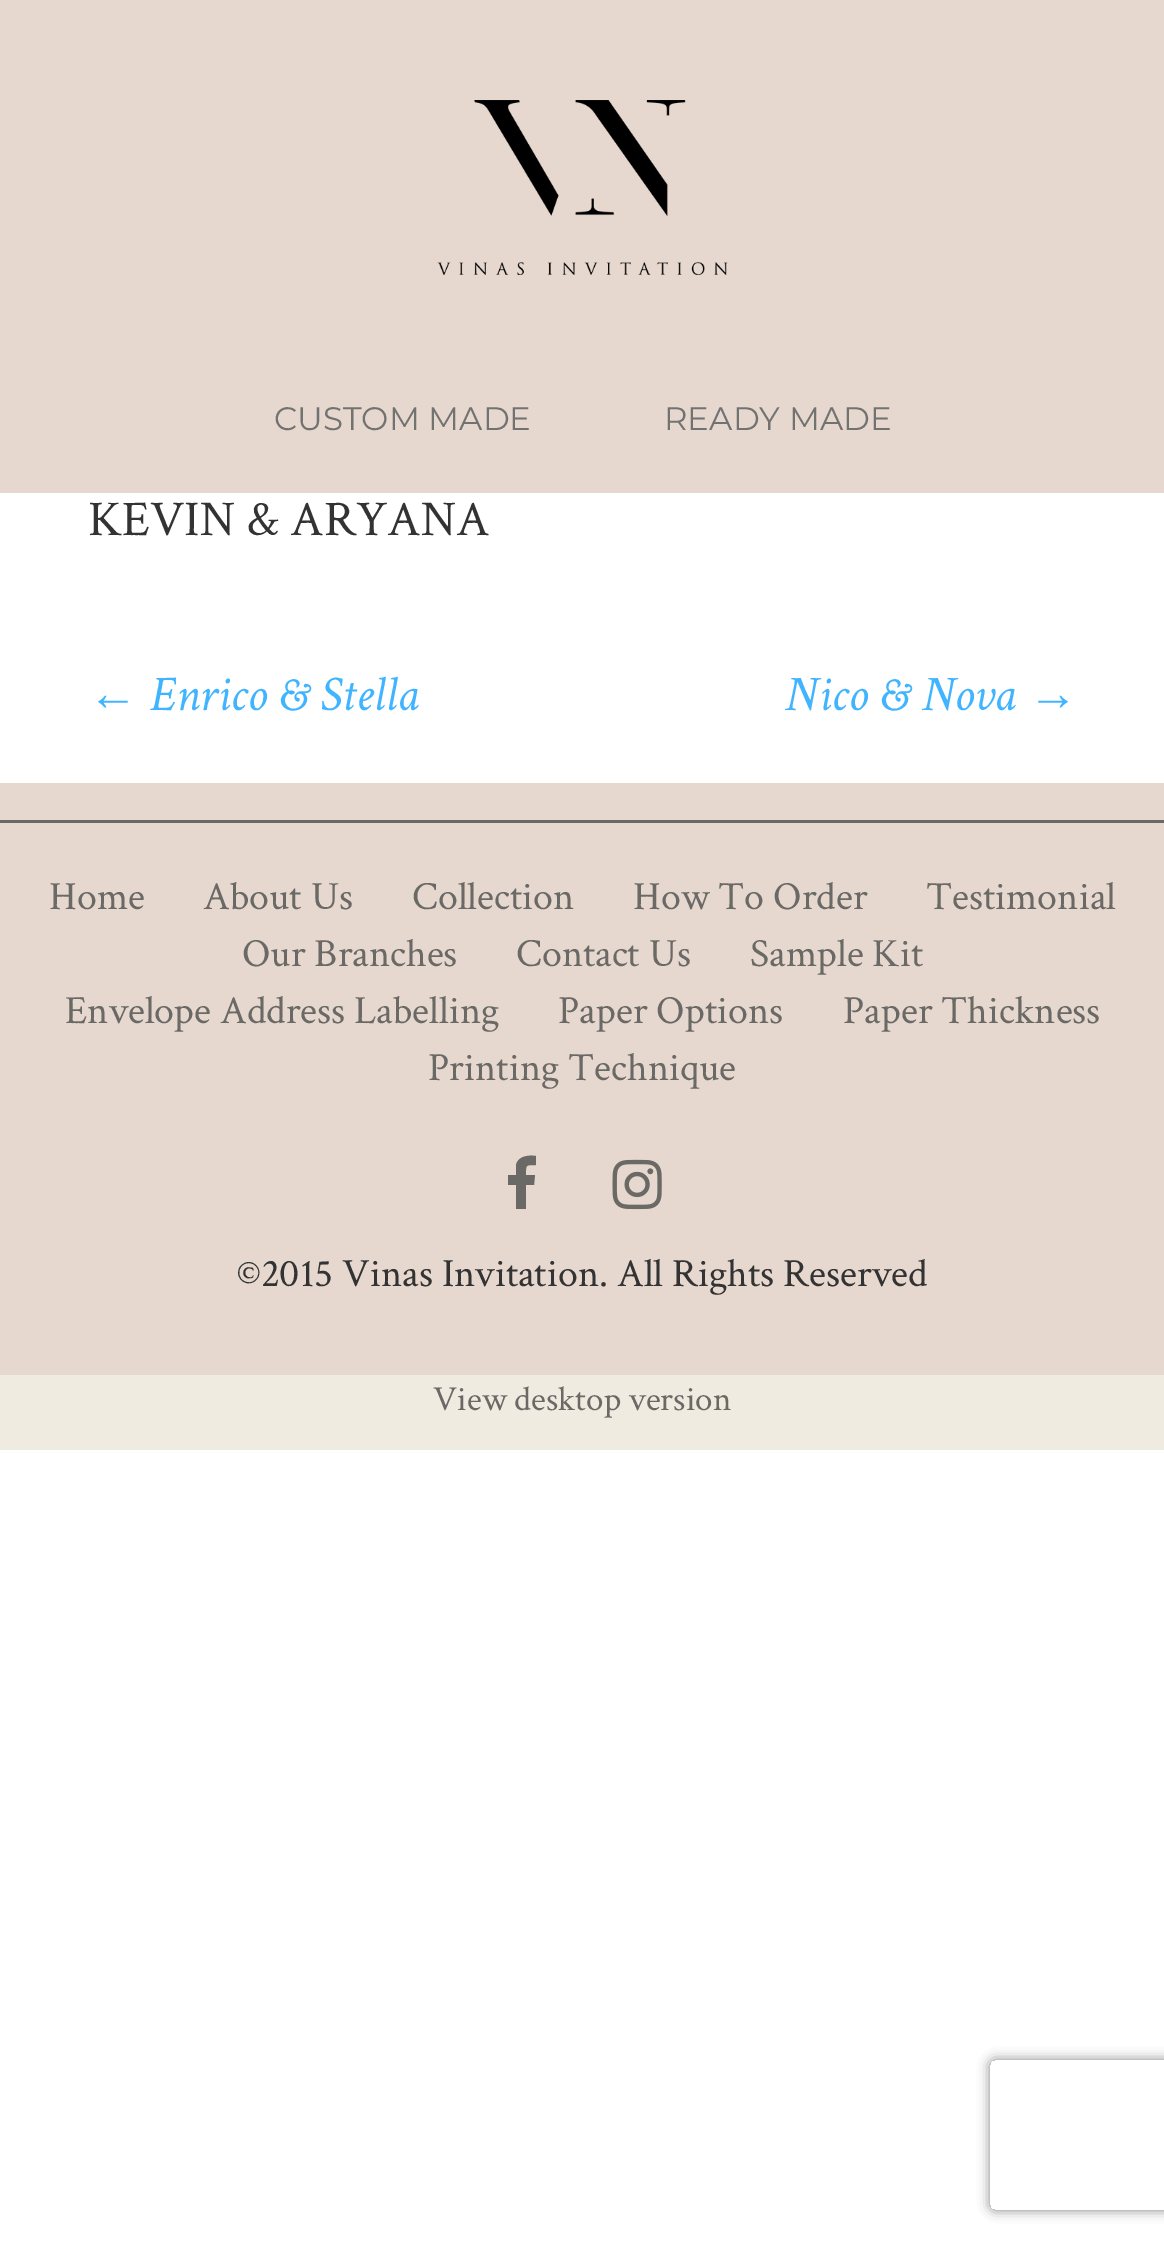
%!PS-Adobe-3.0
%%BoundingBox: 0 0 1164 2243
%%LanguageLevel: 3
%%Pages: 1
%%EndComments
%%BeginProlog
/setink { 3 { 255 div 3 1 roll } repeat setrgbcolor } def
/usefont { [ exch dup neg 0 0 3 -1 roll 0 0 ] selectfont } def
/drawtext { setink usefont moveto show } def
/fillbox { setink rectfill } def
/setalpha { dup .setfillconstantalpha .setstrokeconstantalpha } def
/rrect { 5 dict begin { /r /h /w /y /x } { exch def } forall
  x r add y moveto x w add y 2 copy h add r arct x w add y h add x 1 index r arct
  x y h add x y r arct x y 2 copy exch w add exch r arct closepath end } def
/softshadow { 12 dict begin { /a /b /q /h /w /y /x } { exch def } forall gsave /was 0 def
  9 -2 -9 { dup b mul 4 div /e exch def 1 sub .425 mul 2.718 exch exp 1 add a .99 .min exch div /now exch def
    1 1 now sub 1 was sub div sub setalpha /was now def
    w h .min e 2 mul add 0 gt { x e sub y e sub w e 2 mul add h e 2 mul add
      q e add b .6 mul add w h .min 2 div e add .min 0 .max rrect fill } if } for grestore end } def
/drawimage { 5 dict begin { /h /w /y /x /name } { exch def } forall
  gsave x y translate w h scale
  w h 8 [w 0 0 h 0 0] name (r) file false 3 colorimage grestore end } def
%%EndProlog
%%BeginSetup
<< /PageSize [1164 2243] /PageUsesTransparency true >> setpagedevice
%%EndSetup
%%Page: 1 1
0 .pushpdf14devicefilter
0 2243 translate 1 -1 scale
4 setmiterlimit
0 0 1164 2243 255 255 255 fillbox
0 0 1164 493 230 216 207 fillbox
(assets/img1.rgb) 437 100 291 175 drawimage
(CUSTOM MADE) 274 430 /Montserrat-Regular 32.5 114 114 112 drawtext
(READY MADE) 664 430 /Montserrat-Regular 32.5 114 114 112 drawtext
(KEVIN & ARYANA) 88 535 /CrimsonText-Regular 50 51 51 51 drawtext
(←) 88 710 /LiberationSerif-Italic 50 64 180 255 drawtext
(Enrico & Stella) 149 710 /CrimsonText-Italic 50 64 180 255 drawtext
(Nico & Nova) 784 710 /CrimsonText-Italic 50 64 180 255 drawtext
(→) 1028 710 /LiberationSerif-Italic 50 64 180 255 drawtext
0 783 1164 592 230 216 207 fillbox
0 820 1164 3 106 105 101 fillbox
(Home) 49 909 /CrimsonText-Regular 40 106 105 101 drawtext
(About Us) 203 909 /CrimsonText-Regular 40 106 105 101 drawtext
(Collection) 412 909 /CrimsonText-Regular 40 106 105 101 drawtext
(How To Order) 633 909 /CrimsonText-Regular 40 106 105 101 drawtext
(Testimonial) 926 909 /CrimsonText-Regular 40 106 105 101 drawtext
(Our Branches) 242 966 /CrimsonText-Regular 40 106 105 101 drawtext
(Contact Us) 516 966 /CrimsonText-Regular 40 106 105 101 drawtext
(Sample Kit) 750 966 /CrimsonText-Regular 40 106 105 101 drawtext
(Envelope Address Labelling) 65 1023 /CrimsonText-Regular 40 106 105 101 drawtext
(Paper Options) 558 1023 /CrimsonText-Regular 40 106 105 101 drawtext
(Paper Thickness) 843 1023 /CrimsonText-Regular 40 106 105 101 drawtext
(Printing Technique) 428 1080 /CrimsonText-Regular 40 106 105 101 drawtext
536 1156 moveto 536 1165 lineto 525 1165 526 1165 526 1175 curveto 535 1175 lineto 534 1185 lineto 526 1185 lineto 526 1209 lineto 516 1209 lineto 516 1185 lineto 508 1185 lineto 508 1175 lineto 516 1175 lineto 516 1165 lineto 518 1156 528 1155 536 1156 curveto closepath fill
(assets/img2.rgb) 612 1159 50 51 drawimage
(©2015 Vinas Invitation. All Rights Reserved) 237 1286 /CrimsonText-Regular 40 51 51 51 drawtext
0 1375 1164 75 240 235 225 fillbox
(View desktop version) 433 1410 /CrimsonText-Regular 35 106 105 101 drawtext
gsave
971 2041 moveto 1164 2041 lineto 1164 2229 lineto 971 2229 lineto closepath 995 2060 moveto 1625 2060 lineto 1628 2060 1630 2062 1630 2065 curveto 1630 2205 lineto 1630 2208 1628 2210 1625 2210 curveto 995 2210 lineto 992 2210 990 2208 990 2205 curveto 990 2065 lineto 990 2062 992 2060 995 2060 curveto closepath eoclip newpath
128 128 128 setink
990 2060 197 150 5 6 1 softshadow
grestore
.poppdf14devicefilter showpage
%%EOF
